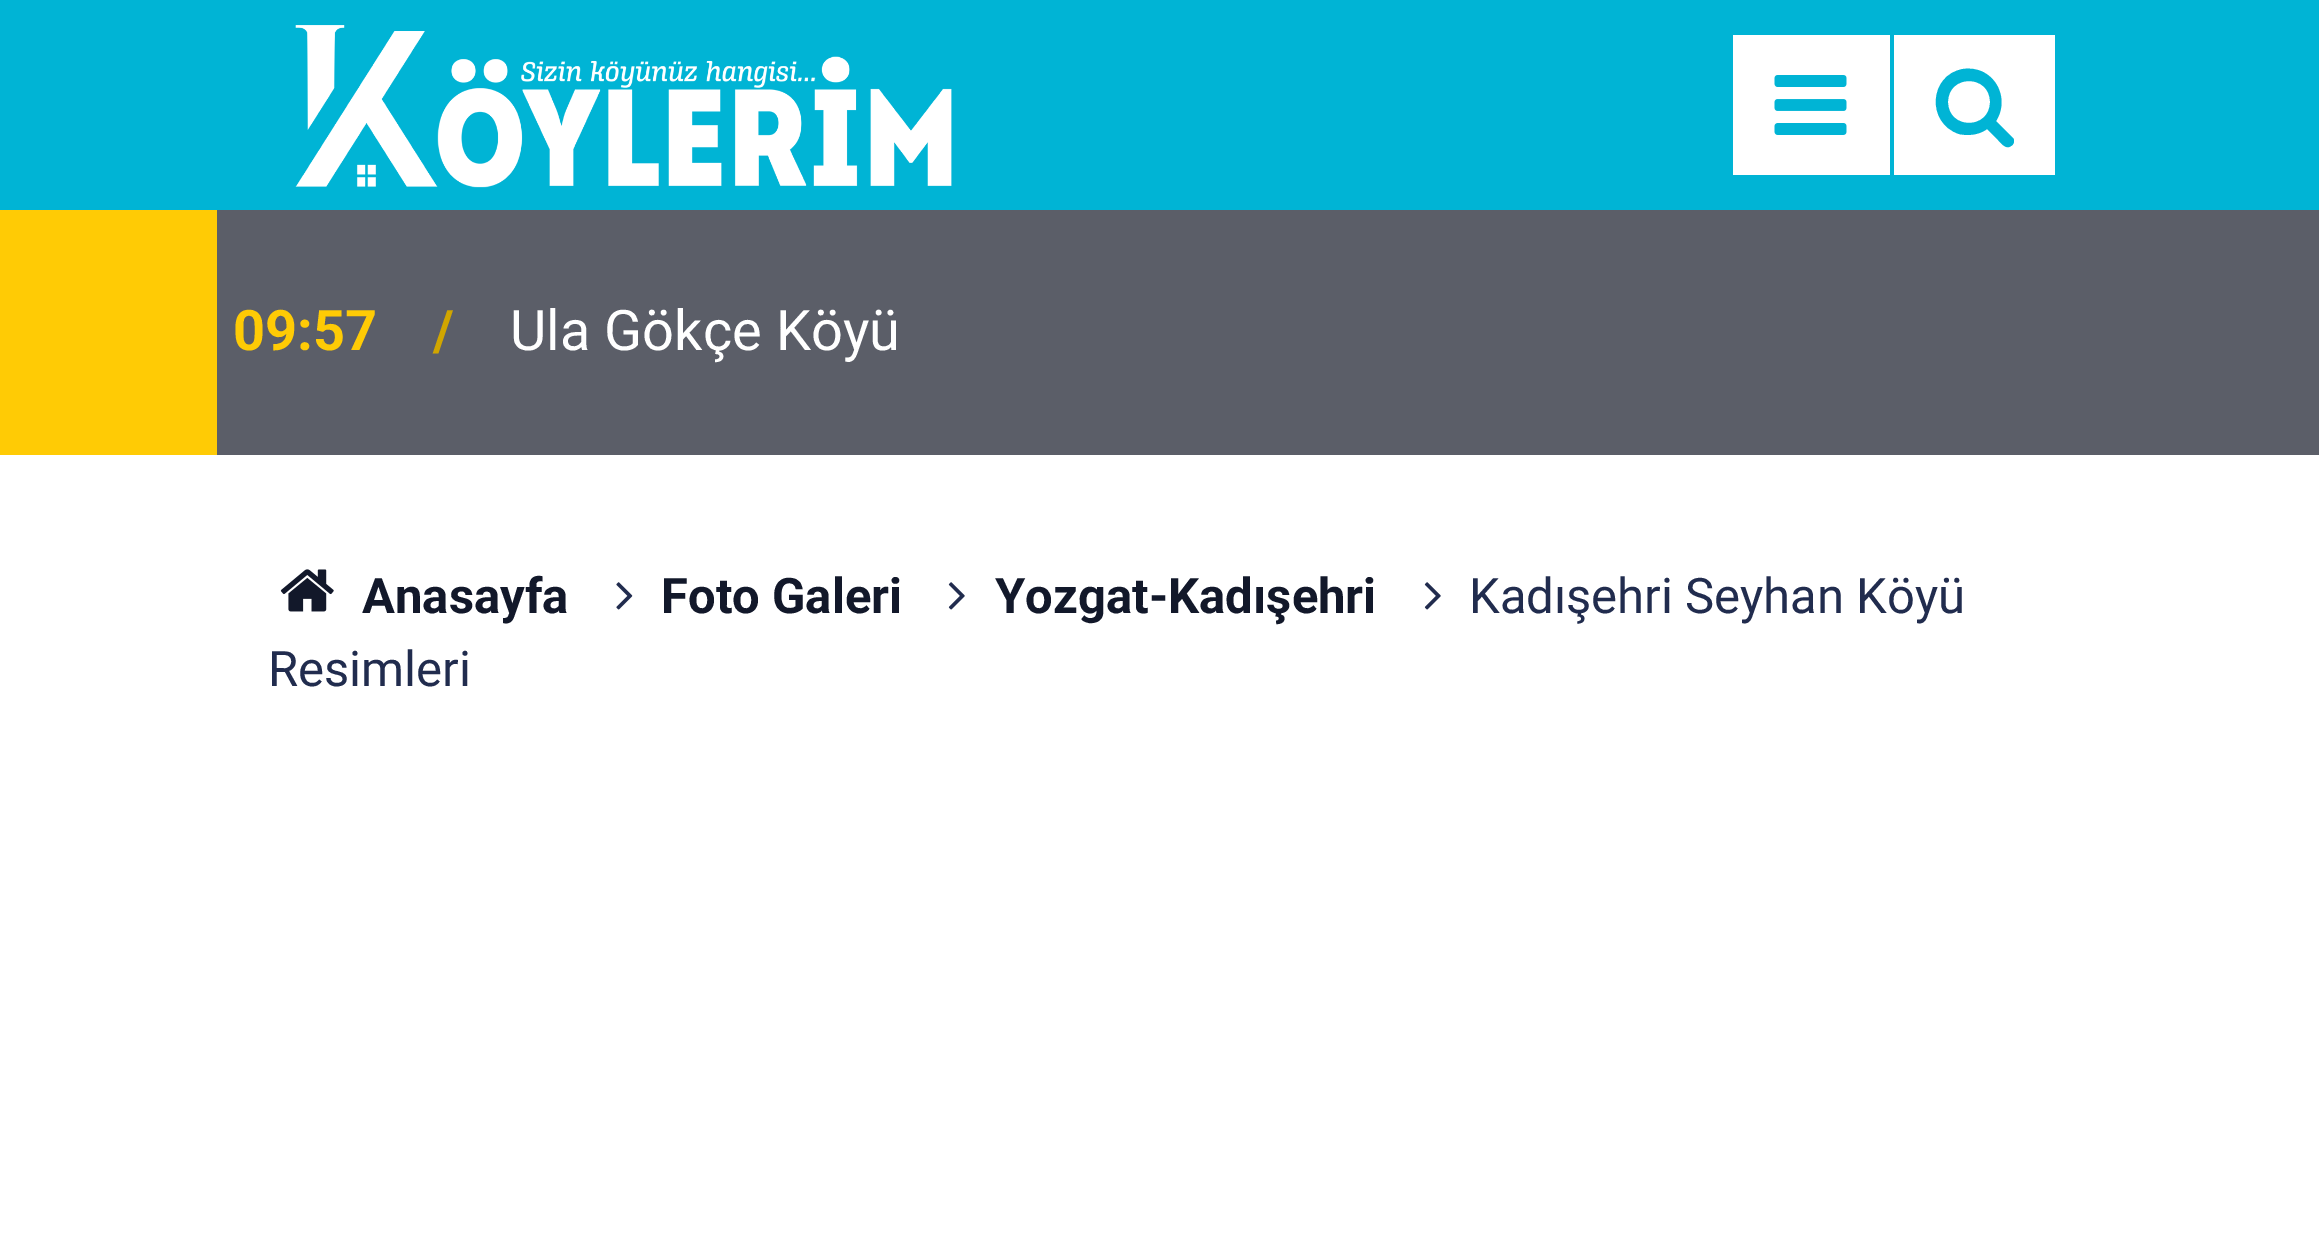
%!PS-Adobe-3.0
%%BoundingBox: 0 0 2319 1236
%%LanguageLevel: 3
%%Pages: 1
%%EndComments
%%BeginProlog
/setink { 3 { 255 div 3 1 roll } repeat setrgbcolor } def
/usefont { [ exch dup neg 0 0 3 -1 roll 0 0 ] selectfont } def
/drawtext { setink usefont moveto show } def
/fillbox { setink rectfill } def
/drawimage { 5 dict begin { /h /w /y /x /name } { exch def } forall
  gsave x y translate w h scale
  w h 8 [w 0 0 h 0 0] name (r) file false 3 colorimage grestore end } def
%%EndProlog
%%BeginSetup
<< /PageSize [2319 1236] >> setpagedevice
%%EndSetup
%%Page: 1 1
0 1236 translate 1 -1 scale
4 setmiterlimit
0 0 2319 1236 255 255 255 fillbox
0 0 2319 210 0 180 213 fillbox
(assets/img1.rgb) 295 25 657 163 drawimage
1733 35 157 140 255 255 255 fillbox
(assets/img2.rgb) 1774 75 73 60 drawimage
1894 35 161 140 255 255 255 fillbox
0 180 213 setink
1990 102 moveto 1990 74 1948 74 1948 102 curveto 1948 130 1990 130 1990 102 curveto closepath 2014 141 moveto 2014 143 2013 145 2011 146 curveto 2006 150 2001 143 1998 140 curveto 1987 129 lineto 1979 135 1968 136 1959 134 curveto 1926 123 1929 75 1963 69 curveto 1970 68 1977 69 1983 72 curveto 2001 81 2007 104 1996 121 curveto 2012 137 lineto 2013 138 2014 139 2014 141 curveto closepath fill
0 210 217 245 255 203 5 fillbox
217 210 2102 245 91 94 104 fillbox
(09:57) 233 350 /Roboto-Bold 56 255 203 5 drawtext
(/) 433 350 /Roboto-Bold 56 209 166 0 drawtext
(Ula Gökçe Köyü) 510 350 /Roboto-Regular 56 255 255 255 drawtext
(assets/img3.rgb) 280 569 54 43 drawimage
(Anasayfa) 362 613 /Roboto-Bold 49 18 24 42 drawtext
(assets/img4.rgb) 616 582 17 28 drawimage
(Foto Galeri) 661 613 /Roboto-Bold 49 18 24 42 drawtext
(assets/img5.rgb) 948 582 17 28 drawimage
(Yozgat-Kadışehri) 995 613 /Roboto-Bold 49 18 24 42 drawtext
(assets/img5.rgb) 1424 582 17 28 drawimage
(Kadışehri Seyhan Köyü) 1469 613 /Roboto-Regular 49 33 44 78 drawtext
(Resimleri) 268 686 /Roboto-Regular 49 33 44 78 drawtext
showpage
%%EOF
